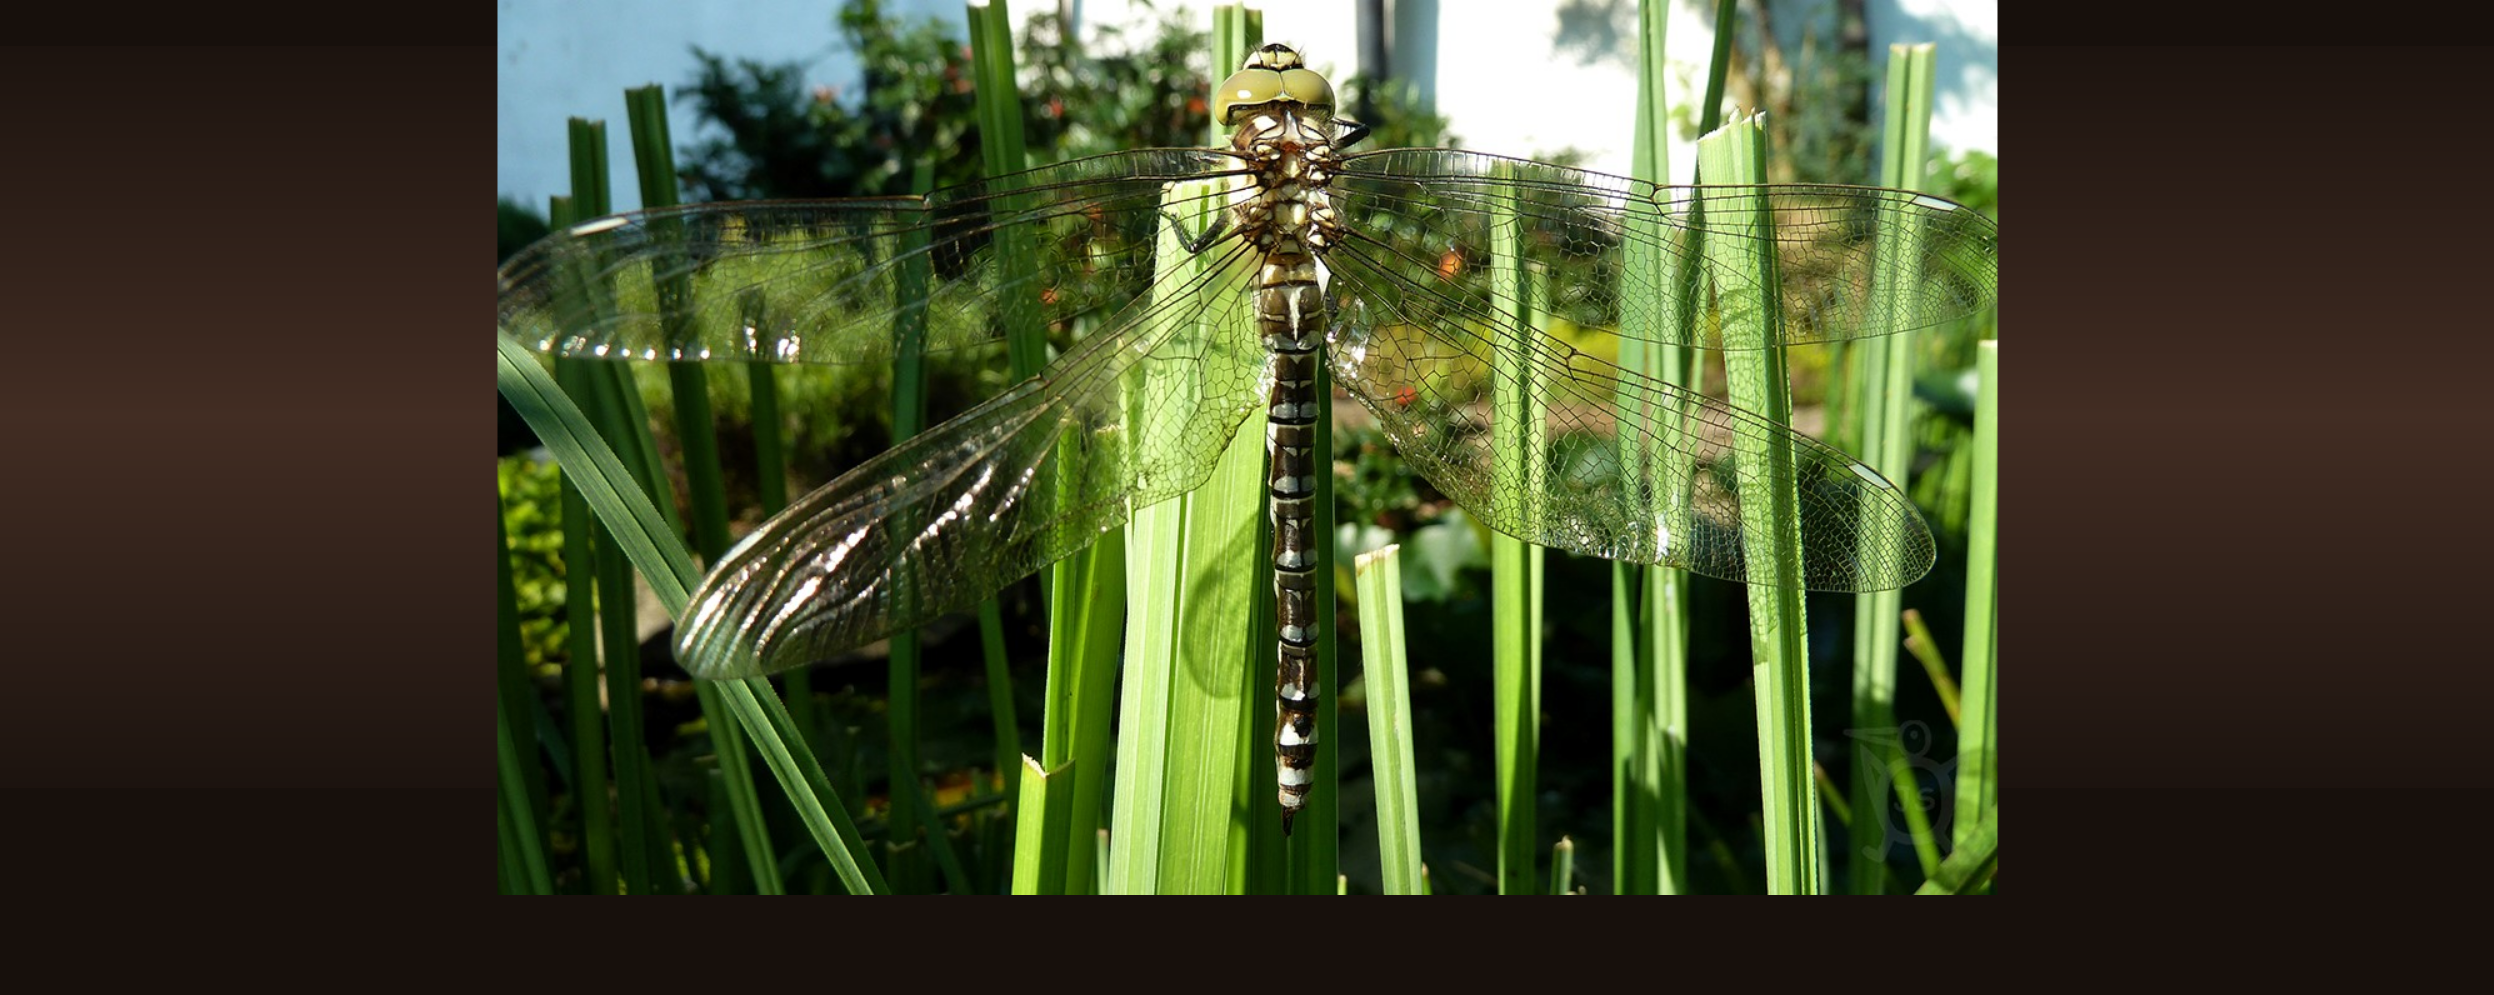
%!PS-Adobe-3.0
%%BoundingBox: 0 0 2494 995
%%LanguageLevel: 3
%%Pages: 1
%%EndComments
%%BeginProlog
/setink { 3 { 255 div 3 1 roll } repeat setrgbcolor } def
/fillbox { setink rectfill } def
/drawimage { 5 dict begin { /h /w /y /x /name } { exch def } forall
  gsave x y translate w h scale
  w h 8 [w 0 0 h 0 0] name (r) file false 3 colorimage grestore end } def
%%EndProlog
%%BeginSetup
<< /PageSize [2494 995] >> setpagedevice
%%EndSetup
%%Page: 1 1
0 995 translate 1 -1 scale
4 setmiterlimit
0 0 2494 995 23 16 12 fillbox
(assets/img1.rgb) 0 46 2494 742 drawimage
(assets/img2.rgb) 497 0 1501 895 drawimage
showpage
%%EOF
